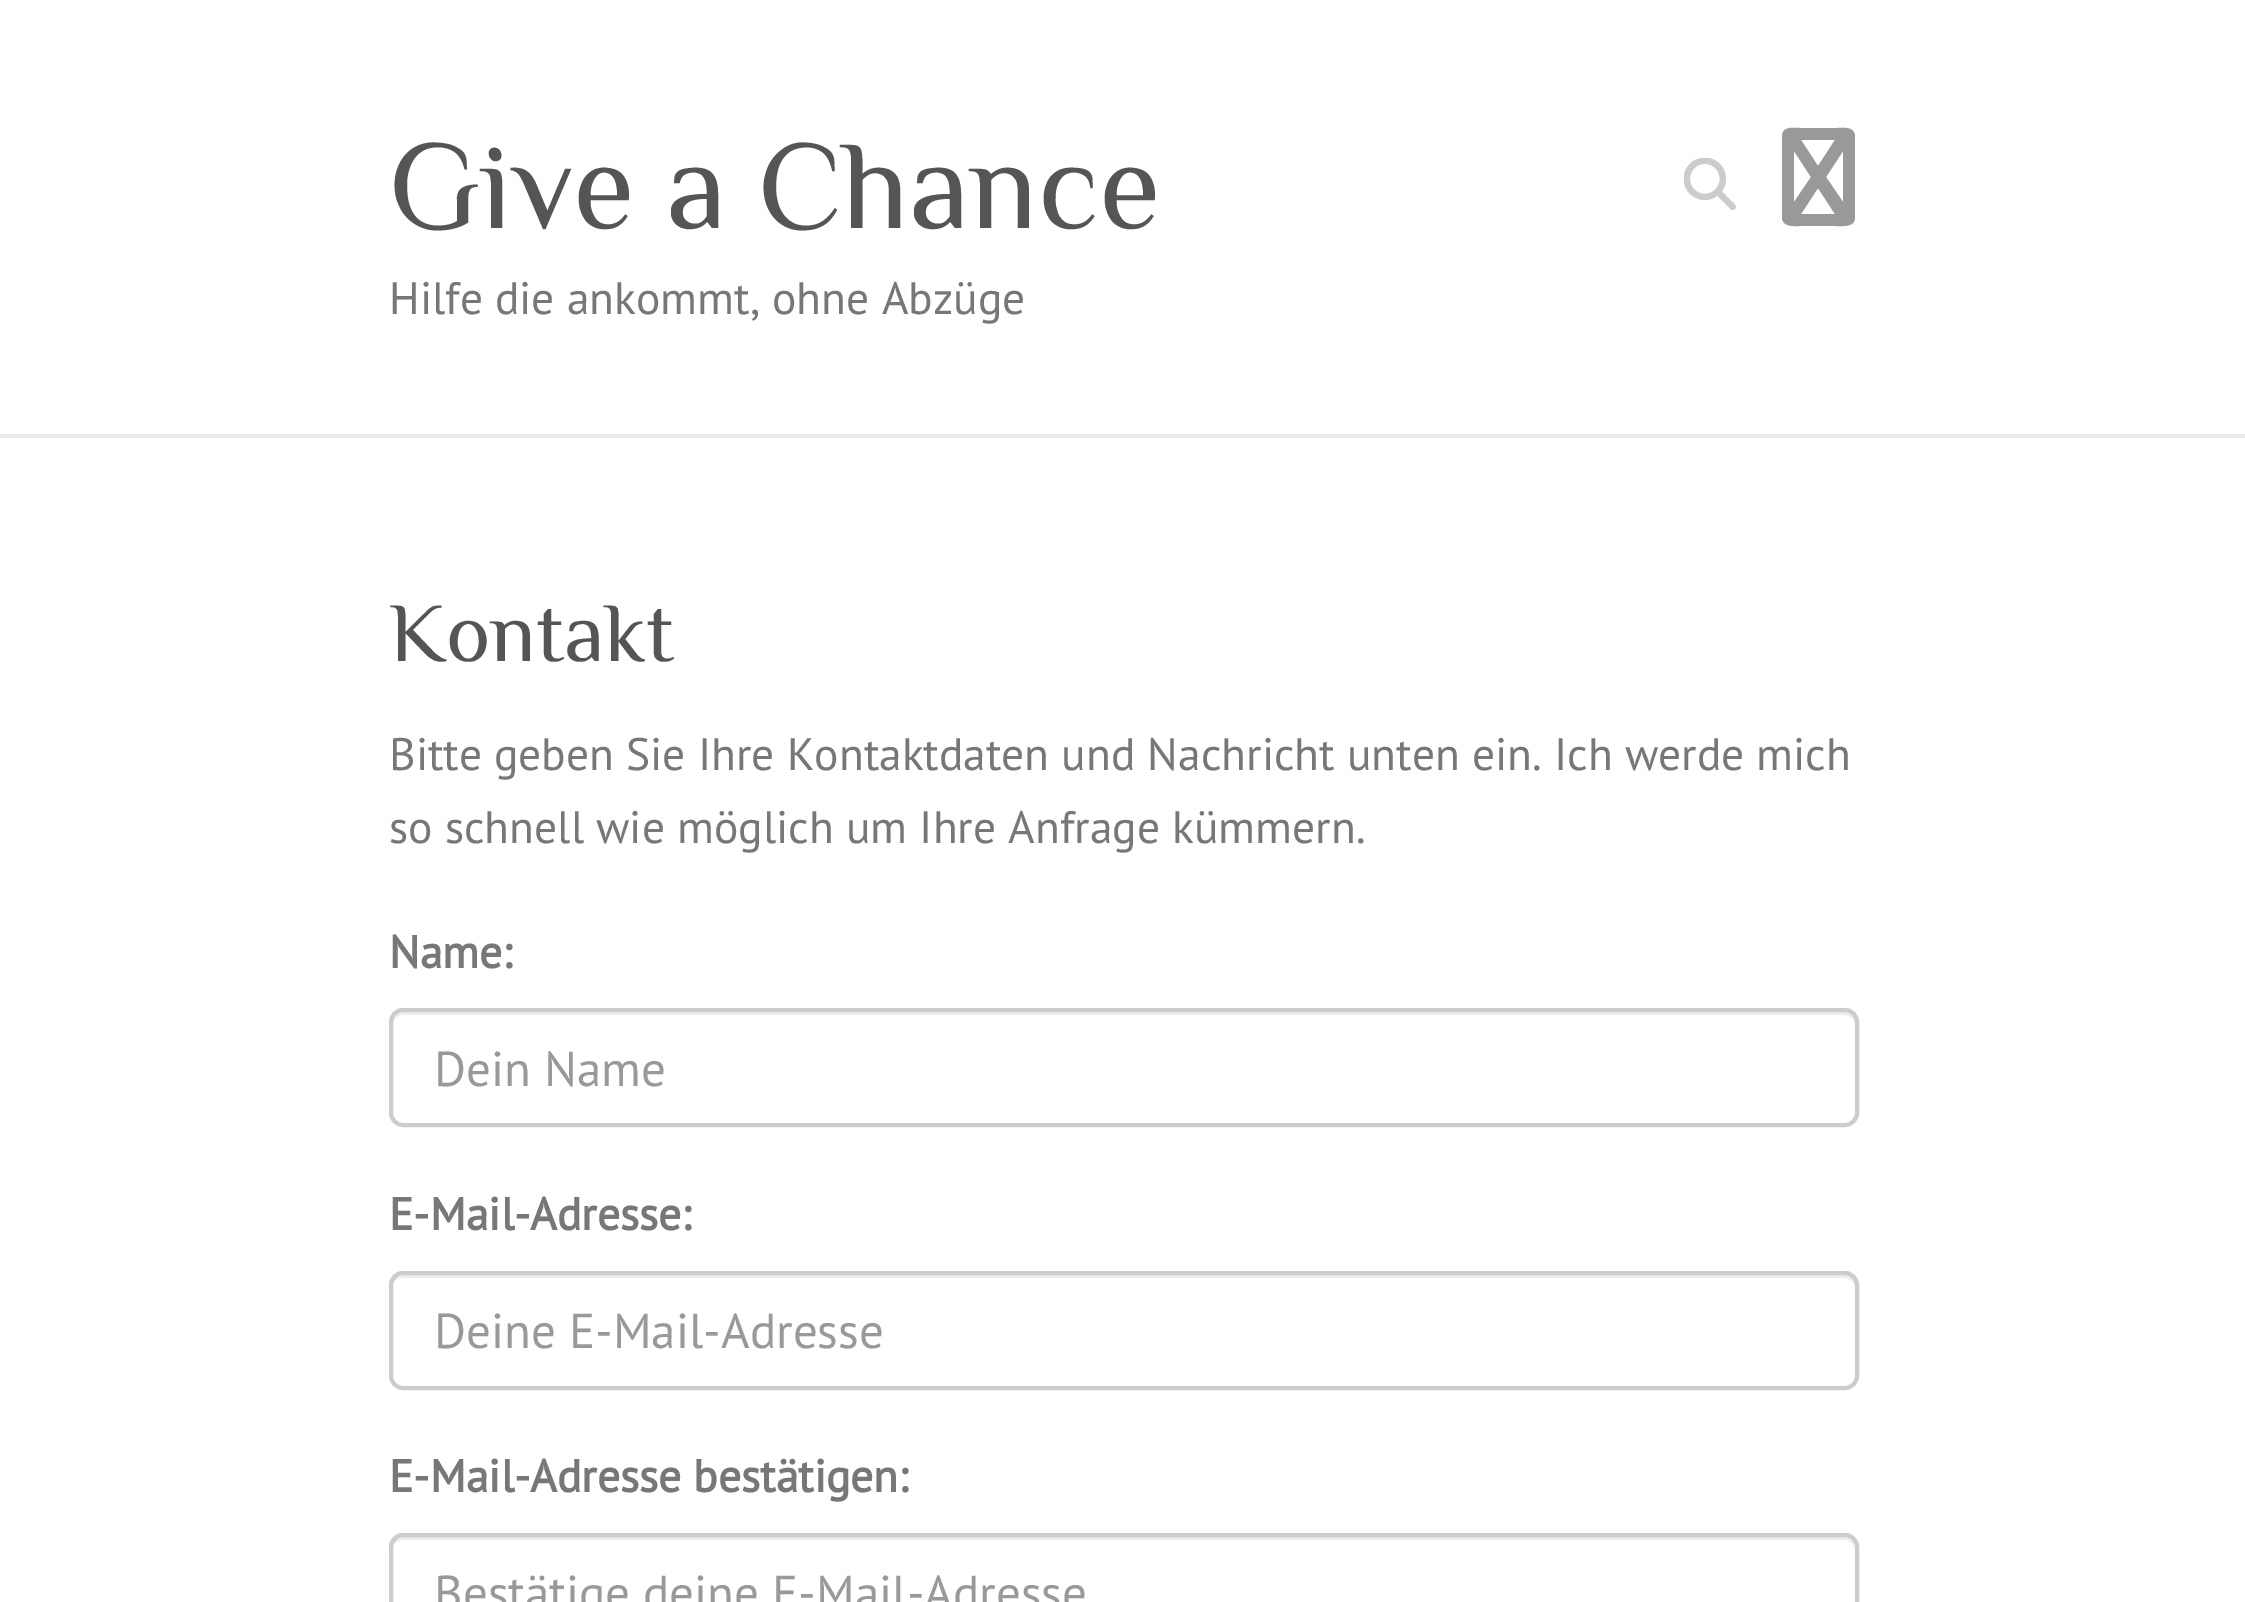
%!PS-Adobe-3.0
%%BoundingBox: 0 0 2245 1602
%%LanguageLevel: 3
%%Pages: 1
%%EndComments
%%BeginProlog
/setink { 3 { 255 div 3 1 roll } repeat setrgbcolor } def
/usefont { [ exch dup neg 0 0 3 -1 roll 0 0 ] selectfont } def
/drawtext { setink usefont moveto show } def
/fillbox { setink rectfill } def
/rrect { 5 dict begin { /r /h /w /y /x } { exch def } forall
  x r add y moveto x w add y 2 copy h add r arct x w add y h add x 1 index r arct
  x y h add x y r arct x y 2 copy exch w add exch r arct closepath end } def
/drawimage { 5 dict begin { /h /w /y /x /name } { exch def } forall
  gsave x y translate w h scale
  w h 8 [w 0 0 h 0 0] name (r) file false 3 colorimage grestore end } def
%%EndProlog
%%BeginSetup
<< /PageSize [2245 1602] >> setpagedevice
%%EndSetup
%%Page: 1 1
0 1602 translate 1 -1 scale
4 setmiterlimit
0 0 2245 1602 255 255 255 fillbox
(Give a Chance) 389 228 /Philosopher-Regular 126 85 85 85 drawtext
(Hilfe die ankommt, ohne Abzüge) 389 314 /PTSans-Regular 45.5 119 119 119 drawtext
(assets/img1.rgb) 1684 158 52 52 drawimage
153 153 153 setink
1794 202 moveto 1811 177 lineto 1794 202 lineto 1811 177 lineto 1794 151 lineto closepath 1801 214 moveto 1835 214 lineto 1801 214 lineto 1835 214 lineto 1818 188 lineto closepath 1826 177 moveto 1843 202 lineto 1826 177 lineto 1843 202 lineto 1843 151 lineto closepath 1835 140 moveto 1801 140 lineto 1835 140 lineto 1801 140 lineto 1818 166 lineto closepath 1782 137 moveto 1782 126 1792 128 1800 128 curveto 1837 128 lineto 1843 128 1853 126 1855 135 curveto 1855 217 lineto 1855 227 1844 226 1837 226 curveto 1800 226 lineto 1793 226 1783 227 1782 218 curveto closepath fill
0 434 2245 4 234 234 234 fillbox
(Kontakt) 389 661 /Philosopher-Regular 84 85 85 85 drawtext
(Bitte geben Sie Ihre Kontaktdaten und Nachricht unten ein. Ich werde mich) 389 770 /PTSans-Regular 45.5 119 119 119 drawtext
(so schnell wie möglich um Ihre Anfrage kümmern.) 389 843 /PTSans-Regular 45.5 119 119 119 drawtext
(Name:) 389 968 /PTSans-Bold 45.5 119 119 119 drawtext
236 236 236 setink
402 1015 moveto 1844 1015 lineto 1850 1015 1855 1020 1855 1026 curveto 1855 1023 lineto 1855 1017 1850 1012 1844 1012 curveto 403 1012 lineto 397 1012 392 1017 392 1023 curveto 392 1026 lineto 392 1020 397 1015 402 1015 curveto closepath fill
204 204 204 setink
4 setlinewidth
391 1010 1466 115 12 rrect stroke
(Dein Name) 434 1086 /PTSans-Regular 49 153 153 153 drawtext
(E-Mail-Adresse:) 389 1230 /PTSans-Bold 45.5 119 119 119 drawtext
236 236 236 setink
402 1278 moveto 1844 1278 lineto 1850 1278 1855 1282 1855 1288 curveto 1855 1285 lineto 1855 1279 1850 1274 1844 1274 curveto 403 1274 lineto 397 1274 392 1279 392 1285 curveto 392 1288 lineto 392 1282 397 1278 402 1278 curveto closepath fill
204 204 204 setink
391 1273 1466 115 12 rrect stroke
(Deine E-Mail-Adresse) 434 1348 /PTSans-Regular 49 153 153 153 drawtext
(E-Mail-Adresse bestätigen:) 389 1492 /PTSans-Bold 45.5 119 119 119 drawtext
236 236 236 setink
402 1540 moveto 1844 1540 lineto 1850 1540 1855 1545 1855 1550 curveto 1855 1548 lineto 1855 1542 1850 1537 1844 1537 curveto 403 1537 lineto 397 1537 392 1542 392 1548 curveto 392 1550 lineto 392 1545 397 1540 402 1540 curveto closepath fill
204 204 204 setink
391 1535 1466 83 12 rrect stroke
(Bestätige deine E-Mail-Adresse) 434 1610 /PTSans-Regular 49 153 153 153 drawtext
showpage
%%EOF
